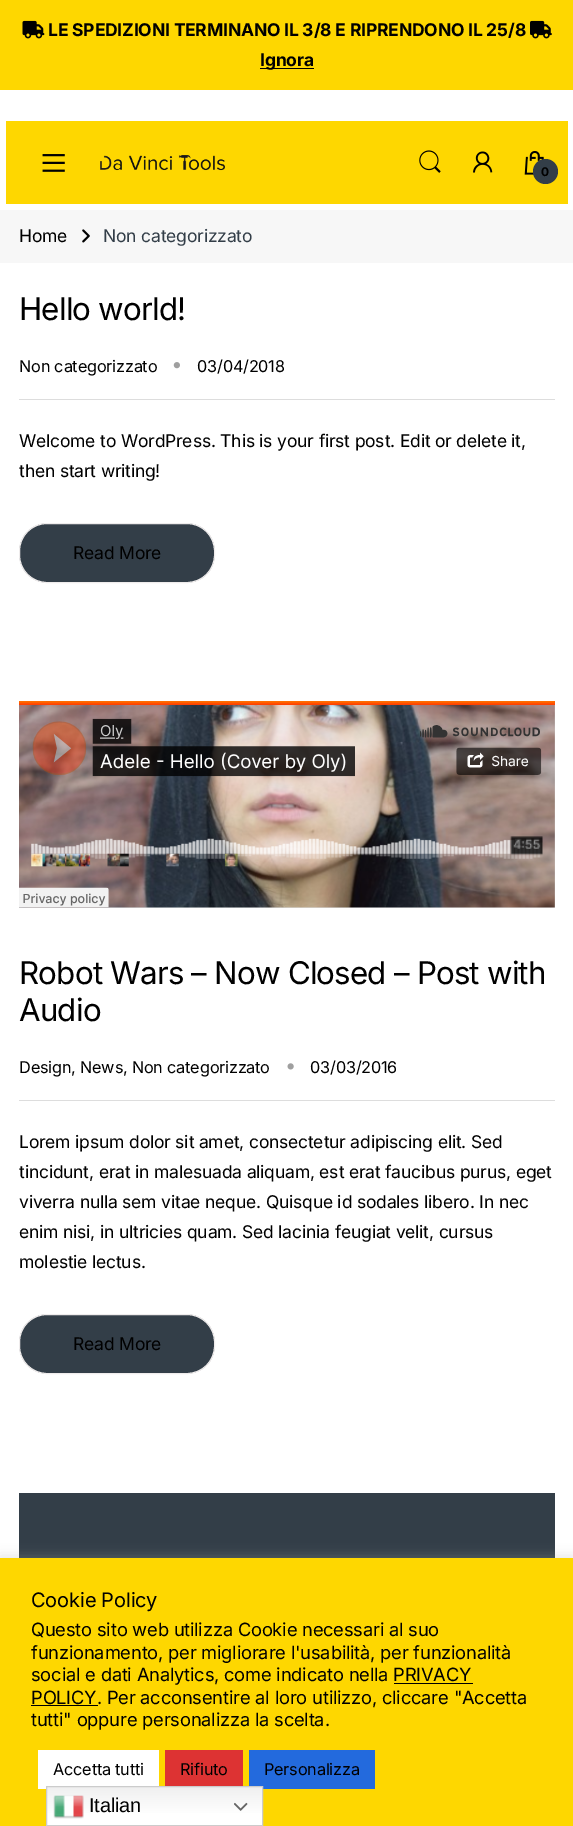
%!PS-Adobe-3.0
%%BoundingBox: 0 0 573 1826
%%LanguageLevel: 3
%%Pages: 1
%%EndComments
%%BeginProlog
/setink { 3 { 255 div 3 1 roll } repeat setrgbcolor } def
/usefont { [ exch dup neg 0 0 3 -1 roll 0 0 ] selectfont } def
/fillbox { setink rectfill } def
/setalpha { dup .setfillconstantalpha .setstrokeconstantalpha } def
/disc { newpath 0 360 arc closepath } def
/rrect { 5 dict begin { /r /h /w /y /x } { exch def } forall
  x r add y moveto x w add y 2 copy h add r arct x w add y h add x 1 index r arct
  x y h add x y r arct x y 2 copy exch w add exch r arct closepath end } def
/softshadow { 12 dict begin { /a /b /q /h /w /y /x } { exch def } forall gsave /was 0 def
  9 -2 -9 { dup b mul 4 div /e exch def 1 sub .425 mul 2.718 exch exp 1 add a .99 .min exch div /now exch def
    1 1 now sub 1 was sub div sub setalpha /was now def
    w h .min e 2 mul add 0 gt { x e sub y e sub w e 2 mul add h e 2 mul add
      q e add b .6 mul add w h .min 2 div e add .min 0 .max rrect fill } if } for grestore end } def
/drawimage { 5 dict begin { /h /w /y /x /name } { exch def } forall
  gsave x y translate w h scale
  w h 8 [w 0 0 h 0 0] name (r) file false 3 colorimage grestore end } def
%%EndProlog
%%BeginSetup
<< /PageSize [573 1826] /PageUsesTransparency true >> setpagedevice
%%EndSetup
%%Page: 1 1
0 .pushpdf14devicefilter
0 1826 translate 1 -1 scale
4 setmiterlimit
0 0 573 1826 255 255 255 fillbox
0 0 573 90 254 215 0 fillbox
(assets/img1.rgb) 22 20 23 19 drawimage
/Inter-Bold 17.5 usefont
0 0 0 setink
48 36 moveto -0.18 0 (LE SPEDIZIONI TERMINANO IL 3/8 E RIPRENDONO IL 25/8) ashow
(assets/img2.rgb) 530 20 22 19 drawimage
260 68 54 1 0 0 0 fillbox
260 66 moveto -0.18 0 (Ignora) ashow
6 121 562 83 254 215 0 fillbox
(assets/img3.rgb) 42 154 23 18 drawimage
(assets/img4.rgb) 100 155 125 16 drawimage
(assets/img5.rgb) 419 150 22 23 drawimage
(assets/img6.rgb) 473 151 20 22 drawimage
(assets/img7.rgb) 524 151 20 24 drawimage
51 62 72 setink
545.5 171.5 12.5 disc fill
/Inter-Bold 12 usefont
0 0 0 setink
541 176 moveto -0.18 0 (0) ashow
0 210 573 53 247 247 247 fillbox
/Inter-Regular 17.5 usefont
0 0 0 setink
19 242 moveto -0.18 0 (Home) ashow
(assets/img8.rgb) 82 229 8 14 drawimage
51 62 72 setink
103 242 moveto -0.18 0 (Non categorizzato) ashow
19 399 536 1 221 221 221 fillbox
/Inter-Regular 31.25 usefont
0 0 0 setink
19 320 moveto -0.8 0 (Hello world!) ashow
/Inter-Regular 16.25 usefont
19 372 moveto -0.18 0 (Non categorizzato) ashow
(assets/img9.rgb) 173 362 7 7 drawimage
197 372 moveto -0.18 0 (03/04/2018) ashow
/Inter-Regular 17.5 usefont
19 447 moveto -0.18 0 (Welcome to WordPress. This is your first post. Edit or delete it,) ashow
19 477 moveto -0.18 0 (then start writing!) ashow
51 62 72 setink
19.5 523.5 195 59 27.5 rrect gsave fill grestore
239 236 236 setink
stroke
0 0 0 setink
73 559 moveto -0.18 0 (Read More) ashow
(assets/img10.rgb) 19 701 536 207 drawimage
19 1100 536 1 221 221 221 fillbox
/Inter-Regular 31.25 usefont
0 0 0 setink
19 984 moveto -0.8 0 (Robot Wars – Now Closed – Post with) ashow
19 1021 moveto -0.8 0 (Audio) ashow
/Inter-Regular 16.25 usefont
19 1073 moveto -0.18 0 (Design, News, Non categorizzato) ashow
(assets/img11.rgb) 287 1063 7 7 drawimage
310 1073 moveto -0.18 0 (03/03/2016) ashow
/Inter-Regular 17.5 usefont
19 1148 moveto -0.18 0 (Lorem ipsum dolor sit amet, consectetur adipiscing elit. Sed) ashow
19 1178 moveto -0.18 0 (tincidunt, erat in malesuada aliquam, est erat faucibus purus, eget) ashow
19 1208 moveto -0.18 0 (viverra nulla sem vitae neque. Quisque id sodales libero. In nec) ashow
19 1238 moveto -0.18 0 (enim nisi, in ultricies quam. Sed lacinia feugiat velit, cursus) ashow
19 1268 moveto -0.18 0 (molestie lectus.) ashow
51 62 72 setink
19.5 1314.5 195 59 27.5 rrect gsave fill grestore
239 236 236 setink
stroke
0 0 0 setink
73 1350 moveto -0.18 0 (Read More) ashow
19 1493 536 65 51 62 72 fillbox
172 171 171 setink
0 1556 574 269 0 6 0.3 softshadow
0 1558 573 268 254 215 0 fillbox
/Inter-Regular 20 usefont
0 0 0 setink
31 1607 moveto -0.18 0 (Cookie Policy) ashow
/Inter-Regular 18.3 usefont
31 1636 moveto -0.18 0 (Questo sito web utilizza Cookie necessari al suo) ashow
31 1659 moveto -0.18 0 (funzionamento, per migliorare l'usabilità, per funzionalità) ashow
31 1681 moveto -0.18 0 (social e dati Analytics, come indicato nella PRIVACY) ashow
31 1705 67 1 0 0 0 fillbox
31 1704 moveto -0.18 0 (POLICY. Per acconsentire al loro utilizzo, cliccare "Accetta) ashow
394 1683 79 1 0 0 0 fillbox
31 1726 moveto -0.18 0 (tutti" oppure personalizza la scelta.) ashow
38 1750 121 39 255 255 255 fillbox
/Inter-Regular 16.25 usefont
0 0 0 setink
53 1775 moveto -0.18 0 (Accetta tutti) ashow
165 1750 78 36 221 51 51 fillbox
0 0 0 setink
180 1775 moveto -0.18 0 (Rifiuto) ashow
249 1750 126 39 35 106 221 fillbox
0 0 0 setink
264 1775 moveto -0.18 0 (Personalizza) ashow
gsave 47 1787 moveto 262 1787 lineto 262 1825 lineto 47 1825 lineto closepath clip newpath
<< /ShadingType 2 /ColorSpace /DeviceRGB /Coords [154 1786 154 1826] /Extend [true true] /Function << /FunctionType 3 /Domain [0 1] /Functions [<< /FunctionType 2 /Domain [0 1] /C0 [0.937 0.937 0.937] /C1 [1 1 1] /N 1 >> << /FunctionType 2 /Domain [0 1] /C0 [1 1 1] /C1 [1 1 1] /N 1 >>] /Bounds [0.7] /Encode [0 1 0 1] >> >> shfill grestore
204 204 204 setink
46.5 1786.5 216 39 rectstroke
(assets/img12.rgb) 53 1795 31 24 drawimage
/LiberationSans-Regular 20 usefont
0 0 0 setink
89 1812 moveto -0.18 0 (Italian) ashow
(assets/img13.rgb) 234 1802 14 9 drawimage
.poppdf14devicefilter showpage
%%EOF
